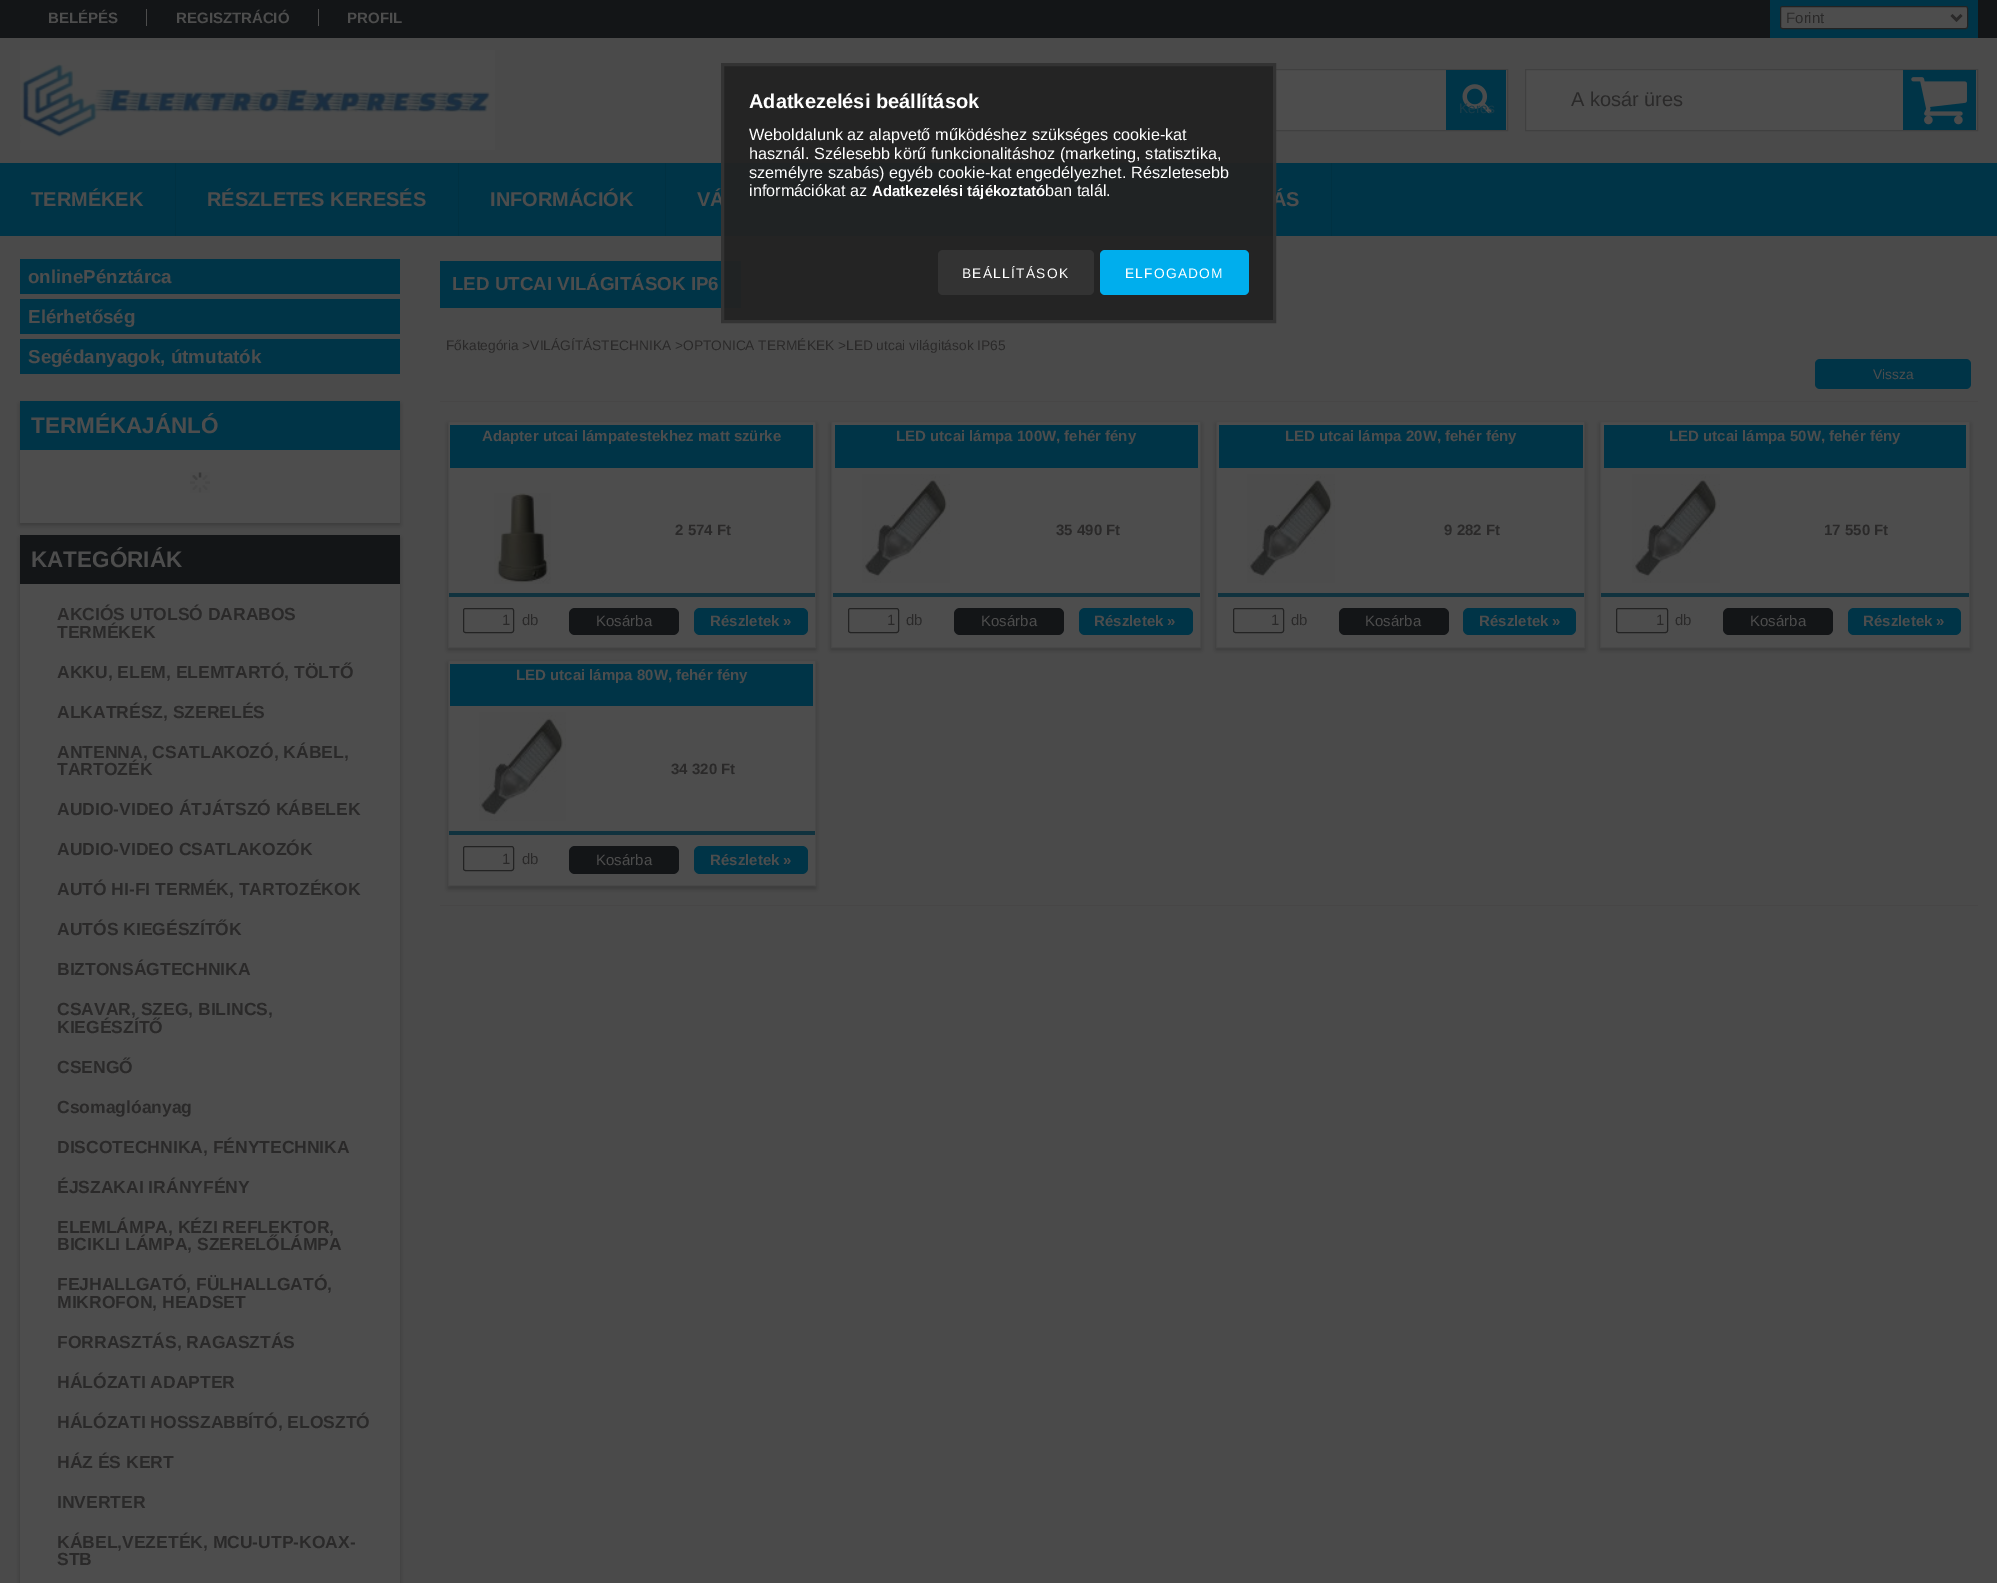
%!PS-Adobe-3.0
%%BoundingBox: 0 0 1997 1583
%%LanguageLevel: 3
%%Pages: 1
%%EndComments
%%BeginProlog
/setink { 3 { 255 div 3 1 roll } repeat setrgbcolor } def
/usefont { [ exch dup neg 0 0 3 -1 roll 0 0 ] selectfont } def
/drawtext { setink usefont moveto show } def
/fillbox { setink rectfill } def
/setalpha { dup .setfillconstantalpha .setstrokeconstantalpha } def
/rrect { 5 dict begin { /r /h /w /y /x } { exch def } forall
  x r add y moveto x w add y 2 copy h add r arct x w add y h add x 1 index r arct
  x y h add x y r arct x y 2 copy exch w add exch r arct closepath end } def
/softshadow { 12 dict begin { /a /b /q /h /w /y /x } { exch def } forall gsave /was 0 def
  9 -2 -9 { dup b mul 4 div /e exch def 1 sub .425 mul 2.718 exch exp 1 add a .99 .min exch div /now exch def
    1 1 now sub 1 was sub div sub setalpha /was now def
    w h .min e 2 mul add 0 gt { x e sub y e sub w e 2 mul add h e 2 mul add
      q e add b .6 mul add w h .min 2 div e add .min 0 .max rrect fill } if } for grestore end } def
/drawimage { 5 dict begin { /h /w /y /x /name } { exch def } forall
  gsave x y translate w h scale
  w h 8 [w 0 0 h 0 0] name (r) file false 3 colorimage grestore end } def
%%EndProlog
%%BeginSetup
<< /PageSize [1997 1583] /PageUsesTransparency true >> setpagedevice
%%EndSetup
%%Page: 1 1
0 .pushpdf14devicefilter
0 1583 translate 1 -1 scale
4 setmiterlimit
0 0 1997 1583 74 74 74 fillbox
0 0 1997 38 19 21 23 fillbox
(BELÉPÉS) 48 23 /LiberationSans-Bold 15 77 77 77 drawtext
146 9 1 17 77 77 77 fillbox
(REGISZTRÁCIÓ) 176 23 /LiberationSans-Bold 15 77 77 77 drawtext
318 9 1 17 77 77 77 fillbox
(PROFIL) 347 23 /LiberationSans-Bold 15 77 77 77 drawtext
1770 0 208 38 0 52 71 fillbox
77 77 77 setink
1780.5 6.5 187 22 2 rrect gsave fill grestore
35 35 35 setink
stroke
42 41 41 setink
2.5 setlinewidth
1951.5 15 moveto 1956.5 20 lineto 1961.5 15 lineto stroke
(Forint) 1786 23 /LiberationSans-Regular 15 42 41 41 drawtext
(assets/img1.rgb) 20 50 475 100 drawimage
77 77 77 setink
1525.5 69.5 moveto 1977.5 69.5 lineto 1977.5 130.5 lineto 1525.5 130.5 lineto closepath gsave fill grestore
64 64 64 setink
1 setlinewidth
stroke
(A kosár üres) 1571 106 /LiberationSans-Regular 20 42 41 41 drawtext
1903 70 73 60 0 52 71 fillbox
(assets/img2.rgb) 1911 77 56 48 drawimage
77 77 77 setink
1016.5 69.5 moveto 1507.5 69.5 lineto 1507.5 130.5 lineto 1016.5 130.5 lineto closepath gsave fill grestore
64 64 64 setink
stroke
1446 70 60 60 0 52 71 fillbox
(assets/img3.rgb) 1462 84 30 30 drawimage
(Keres) 1459 113 /LiberationSans-Regular 13.75 25 60 73 drawtext
0 163 1997 73 0 52 71 fillbox
175 163 1 73 0 49 66 fillbox
(TERMÉKEK) 31 206 /LiberationSans-Bold 20 77 77 77 drawtext
458 163 1 73 0 49 66 fillbox
(RÉSZLETES KERESÉS) 207 206 /LiberationSans-Bold 20 77 77 77 drawtext
665 163 1 73 0 49 66 fillbox
(INFORMÁCIÓK) 490 206 /LiberationSans-Bold 20 77 77 77 drawtext
979 163 1 73 0 49 66 fillbox
(VÁ) 697 206 /LiberationSans-Bold 20 77 77 77 drawtext
1100 163 1 73 0 49 66 fillbox
1331 163 1 73 0 49 66 fillbox
(ÁS) 1272 206 /LiberationSans-Bold 20 77 77 77 drawtext
20 259 380 35 0 52 71 fillbox
(onlinePénztárca) 28 283 /LiberationSans-Bold 18.75 77 77 77 drawtext
20 299 380 35 0 52 71 fillbox
(Elérhetőség) 28 323 /LiberationSans-Bold 18.75 77 77 77 drawtext
20 339 380 35 0 52 71 fillbox
(Segédanyagok, útmutatók) 28 363 /LiberationSans-Bold 18.75 77 77 77 drawtext
0 0 0 setink
20 404 380 121 0 2 0.2 softshadow
20 401 380 49 0 52 71 fillbox
(TERMÉKAJÁNLÓ) 31 433 /LiberationSans-Bold 22.5 77 77 77 drawtext
20 450 380 73 77 77 77 fillbox
(assets/img4.rgb) 190 472 20 21 drawimage
0 0 0 setink
20 538 380 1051 0 2 0.2 softshadow
20 535 380 49 19 21 23 fillbox
(KATEGÓRIÁK) 31 567 /LiberationSans-Bold 22.5 77 77 77 drawtext
20 584 380 999 77 77 77 fillbox
(AKCIÓS UTOLSÓ DARABOS) 57 620 /LiberationSans-Bold 17.5 42 41 41 drawtext
(TERMÉKEK) 57 638 /LiberationSans-Bold 17.5 42 41 41 drawtext
(AKKU, ELEM, ELEMTARTÓ, TÖLTŐ) 57 678 /LiberationSans-Bold 17.5 42 41 41 drawtext
(ALKATRÉSZ, SZERELÉS) 57 718 /LiberationSans-Bold 17.5 42 41 41 drawtext
(ANTENNA, CSATLAKOZÓ, KÁBEL,) 57 758 /LiberationSans-Bold 17.5 42 41 41 drawtext
(TARTOZÉK) 57 775 /LiberationSans-Bold 17.5 42 41 41 drawtext
(AUDIO-VIDEO ÁTJÁTSZÓ KÁBELEK) 57 815 /LiberationSans-Bold 17.5 42 41 41 drawtext
(AUDIO-VIDEO CSATLAKOZÓK) 57 855 /LiberationSans-Bold 17.5 42 41 41 drawtext
(AUTÓ HI-FI TERMÉK, TARTOZÉKOK) 57 895 /LiberationSans-Bold 17.5 42 41 41 drawtext
(AUTÓS KIEGÉSZÍTŐK) 57 935 /LiberationSans-Bold 17.5 42 41 41 drawtext
(BIZTONSÁGTECHNIKA) 57 975 /LiberationSans-Bold 17.5 42 41 41 drawtext
(CSAVAR, SZEG, BILINCS,) 57 1015 /LiberationSans-Bold 17.5 42 41 41 drawtext
(KIEGÉSZÍTŐ) 57 1033 /LiberationSans-Bold 17.5 42 41 41 drawtext
(CSENGŐ) 57 1073 /LiberationSans-Bold 17.5 42 41 41 drawtext
(Csomaglóanyag) 57 1113 /LiberationSans-Bold 17.5 42 41 41 drawtext
(DISCOTECHNIKA, FÉNYTECHNIKA) 57 1153 /LiberationSans-Bold 17.5 42 41 41 drawtext
(ÉJSZAKAI IRÁNYFÉNY) 57 1193 /LiberationSans-Bold 17.5 42 41 41 drawtext
(ELEMLÁMPA, KÉZI REFLEKTOR,) 57 1233 /LiberationSans-Bold 17.5 42 41 41 drawtext
(BICIKLI LÁMPA, SZERELŐLÁMPA) 57 1250 /LiberationSans-Bold 17.5 42 41 41 drawtext
(FEJHALLGATÓ, FÜLHALLGATÓ,) 57 1290 /LiberationSans-Bold 17.5 42 41 41 drawtext
(MIKROFON, HEADSET) 57 1308 /LiberationSans-Bold 17.5 42 41 41 drawtext
(FORRASZTÁS, RAGASZTÁS) 57 1348 /LiberationSans-Bold 17.5 42 41 41 drawtext
(HÁLÓZATI ADAPTER) 57 1388 /LiberationSans-Bold 17.5 42 41 41 drawtext
(HÁLÓZATI HOSSZABBÍTÓ, ELOSZTÓ) 57 1428 /LiberationSans-Bold 17.5 42 41 41 drawtext
(HÁZ ÉS KERT) 57 1468 /LiberationSans-Bold 17.5 42 41 41 drawtext
(INVERTER) 57 1508 /LiberationSans-Bold 17.5 42 41 41 drawtext
(KÁBEL,VEZETÉK, MCU-UTP-KOAX-) 57 1548 /LiberationSans-Bold 17.5 42 41 41 drawtext
(STB) 57 1565 /LiberationSans-Bold 17.5 42 41 41 drawtext
440 261 301 47 0 52 71 fillbox
(LED UTCAI VILÁGITÁSOK IP6) 452 290 /LiberationSans-Bold 18.75 77 77 77 drawtext
(Főkategória >VILÁGÍTÁSTECHNIKA >OPTONICA TERMÉKEK >LED utcai világitások IP65) 446 350 /LiberationSans-Regular 13.75 42 41 41 drawtext
0 52 71 setink
1815 359 156 30 5 rrect fill
(Vissza) 1873 379 /LiberationSans-Regular 13.75 77 77 77 drawtext
440 401 1538 1 71 70 70 fillbox
0 0 0 setink
448 424 368 226 0 2 0.2 softshadow
77 77 77 setink
448.5 421.5 moveto 815.5 421.5 lineto 815.5 647.5 lineto 448.5 647.5 lineto closepath gsave fill grestore
72 72 72 setink
stroke
450 425 363 43 0 52 71 fillbox
(Adapter utcai lámpatestekhez matt szürke) 482 441 /LiberationSans-Bold 15 77 77 77 drawtext
(assets/img5.rgb) 494 493 57 91 drawimage
(2 574 Ft) 675 535 /LiberationSans-Bold 15 42 41 41 drawtext
449 593 366 4 16 50 62 fillbox
35 35 35 setink
463.5 608.5 50 24 2 rrect stroke
(1) 502 625 /LiberationSans-Regular 15 42 41 41 drawtext
(db) 522 625 /LiberationSans-Regular 15 42 41 41 drawtext
19 21 23 setink
569 608 110 27 6 rrect fill
(Kosárba) 596 626 /LiberationSans-Regular 15 77 77 77 drawtext
0 52 71 setink
694 608 114 27 6 rrect fill
(Részletek ») 710 626 /LiberationSans-Bold 15 77 77 77 drawtext
0 0 0 setink
831 424 370 226 0 2 0.2 softshadow
77 77 77 setink
831.5 421.5 moveto 1200.5 421.5 lineto 1200.5 647.5 lineto 831.5 647.5 lineto closepath gsave fill grestore
72 72 72 setink
stroke
835 425 363 43 0 52 71 fillbox
(LED utcai lámpa 100W, fehér fény) 896 441 /LiberationSans-Bold 15 77 77 77 drawtext
(assets/img6.rgb) 862 474 88 109 drawimage
(35 490 Ft) 1056 535 /LiberationSans-Bold 15 42 41 41 drawtext
833 593 367 4 16 50 62 fillbox
35 35 35 setink
848.5 608.5 50 24 2 rrect stroke
(1) 887 625 /LiberationSans-Regular 15 42 41 41 drawtext
(db) 906 625 /LiberationSans-Regular 15 42 41 41 drawtext
19 21 23 setink
954 608 110 27 6 rrect fill
(Kosárba) 981 626 /LiberationSans-Regular 15 77 77 77 drawtext
0 52 71 setink
1079 608 114 27 6 rrect fill
(Részletek ») 1094 626 /LiberationSans-Bold 15 77 77 77 drawtext
0 0 0 setink
1216 424 369 226 0 2 0.2 softshadow
77 77 77 setink
1216.5 421.5 moveto 1584.5 421.5 lineto 1584.5 647.5 lineto 1216.5 647.5 lineto closepath gsave fill grestore
72 72 72 setink
stroke
1219 425 364 43 0 52 71 fillbox
(LED utcai lámpa 20W, fehér fény) 1285 441 /LiberationSans-Bold 15 77 77 77 drawtext
(assets/img7.rgb) 1247 474 88 109 drawimage
(9 282 Ft) 1444 535 /LiberationSans-Bold 15 42 41 41 drawtext
1218 593 366 4 16 50 62 fillbox
35 35 35 setink
1233.5 608.5 50 24 2 rrect stroke
(1) 1271 625 /LiberationSans-Regular 15 42 41 41 drawtext
(db) 1291 625 /LiberationSans-Regular 15 42 41 41 drawtext
19 21 23 setink
1339 608 110 27 6 rrect fill
(Kosárba) 1365 626 /LiberationSans-Regular 15 77 77 77 drawtext
0 52 71 setink
1463 608 113 27 6 rrect fill
(Részletek ») 1479 626 /LiberationSans-Bold 15 77 77 77 drawtext
0 0 0 setink
1600 424 370 226 0 2 0.2 softshadow
77 77 77 setink
1600.5 421.5 moveto 1969.5 421.5 lineto 1969.5 647.5 lineto 1600.5 647.5 lineto closepath gsave fill grestore
72 72 72 setink
stroke
1604 425 362 43 0 52 71 fillbox
(LED utcai lámpa 50W, fehér fény) 1669 441 /LiberationSans-Bold 15 77 77 77 drawtext
(assets/img6.rgb) 1632 474 88 109 drawimage
(17 550 Ft) 1824 535 /LiberationSans-Bold 15 42 41 41 drawtext
1601 593 368 4 16 50 62 fillbox
35 35 35 setink
1616.5 608.5 51 24 2 rrect stroke
(1) 1656 625 /LiberationSans-Regular 15 42 41 41 drawtext
(db) 1675 625 /LiberationSans-Regular 15 42 41 41 drawtext
19 21 23 setink
1723 608 110 27 6 rrect fill
(Kosárba) 1750 626 /LiberationSans-Regular 15 77 77 77 drawtext
0 52 71 setink
1848 608 113 27 6 rrect fill
(Részletek ») 1863 626 /LiberationSans-Bold 15 77 77 77 drawtext
0 0 0 setink
448 663 368 226 0 2 0.2 softshadow
77 77 77 setink
448.5 660.5 moveto 815.5 660.5 lineto 815.5 885.5 lineto 448.5 885.5 lineto closepath gsave fill grestore
72 72 72 setink
stroke
450 664 363 42 0 52 71 fillbox
(LED utcai lámpa 80W, fehér fény) 516 680 /LiberationSans-Bold 15 77 77 77 drawtext
(assets/img8.rgb) 479 712 87 109 drawimage
(34 320 Ft) 671 774 /LiberationSans-Bold 15 42 41 41 drawtext
449 831 366 4 16 50 62 fillbox
35 35 35 setink
463.5 846.5 50 24 2 rrect stroke
(1) 502 864 /LiberationSans-Regular 15 42 41 41 drawtext
(db) 522 864 /LiberationSans-Regular 15 42 41 41 drawtext
19 21 23 setink
569 846 110 28 6 rrect fill
(Kosárba) 596 865 /LiberationSans-Regular 15 77 77 77 drawtext
0 52 71 setink
694 846 114 28 6 rrect fill
(Részletek ») 710 865 /LiberationSans-Bold 15 77 77 77 drawtext
440 905 1538 1 71 70 70 fillbox
0.95 setalpha
34 34 34 setink
722.5 64.5 moveto 1274.5 64.5 lineto 1274.5 321.5 lineto 722.5 321.5 lineto closepath fill
1 setalpha
51 51 51 setink
3 setlinewidth
722.5 64.5 moveto 1274.5 64.5 lineto 1274.5 321.5 lineto 722.5 321.5 lineto closepath stroke
(Adatkezelési beállítások) 749 108 /LiberationSans-Bold 20 255 255 255 drawtext
(Weboldalunk az alapvető működéshez szükséges cookie-kat) 749 140 /LiberationSans-Regular 16.25 255 255 255 drawtext
(használ. Szélesebb körű funkcionalitáshoz \(marketing, statisztika,) 749 159 /LiberationSans-Regular 16.25 255 255 255 drawtext
(személyre szabás\) egyéb cookie-kat engedélyezhet. Részletesebb) 749 178 /LiberationSans-Regular 16.25 255 255 255 drawtext
(információkat az) 749 196 /LiberationSans-Regular 16.25 255 255 255 drawtext
(Adatkezelési tájékoztató) 872 196 /LiberationSans-Bold 15 255 255 255 drawtext
(ban talál.) 1045 196 /LiberationSans-Regular 16.25 255 255 255 drawtext
51 51 51 setink
938 250 156 45 5 rrect fill
/LiberationSans-Regular 13.75 usefont
255 255 255 setink
962 278 moveto 1.25 0 (BEÁLLÍTÁSOK) ashow
0 174 237 setink
1100 250 149 45 5 rrect fill
255 255 255 setink
1125 278 moveto 1.25 0 (ELFOGADOM) ashow
.poppdf14devicefilter showpage
%%EOF
